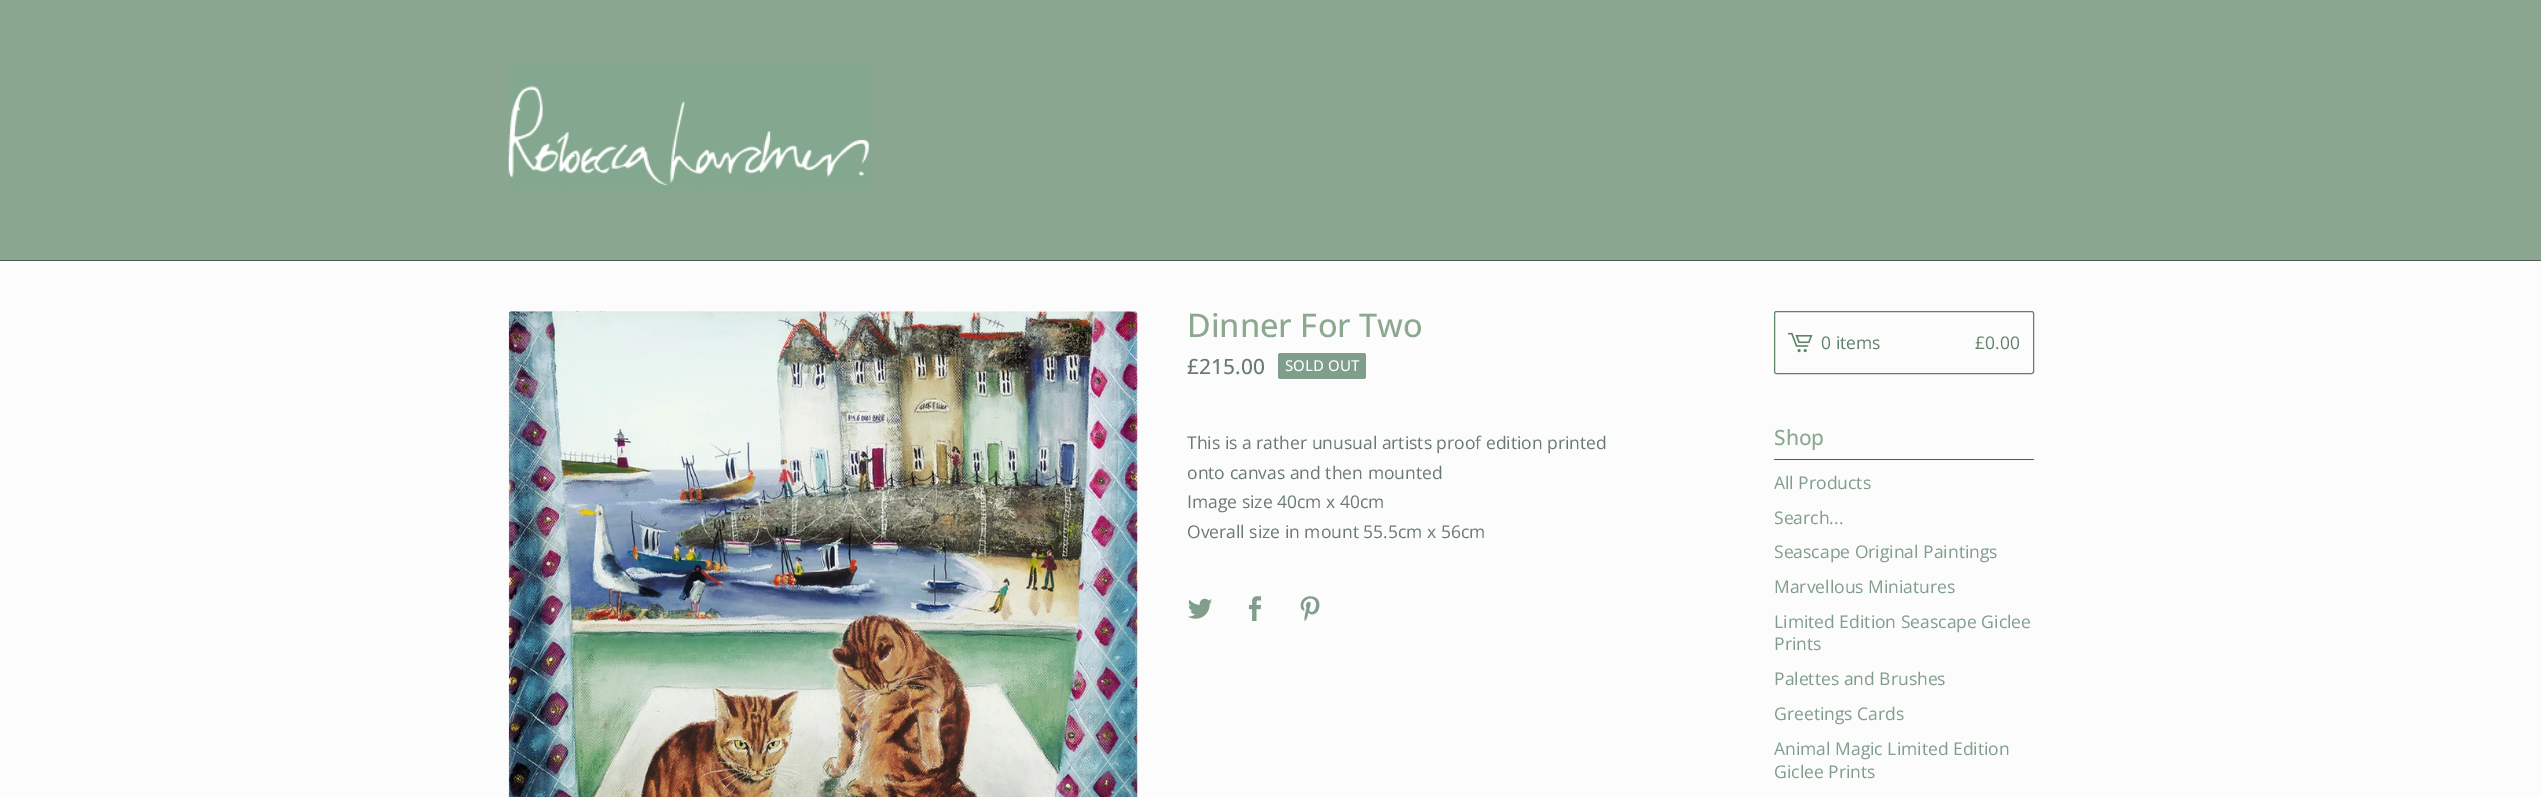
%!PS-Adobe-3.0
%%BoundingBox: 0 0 2541 797
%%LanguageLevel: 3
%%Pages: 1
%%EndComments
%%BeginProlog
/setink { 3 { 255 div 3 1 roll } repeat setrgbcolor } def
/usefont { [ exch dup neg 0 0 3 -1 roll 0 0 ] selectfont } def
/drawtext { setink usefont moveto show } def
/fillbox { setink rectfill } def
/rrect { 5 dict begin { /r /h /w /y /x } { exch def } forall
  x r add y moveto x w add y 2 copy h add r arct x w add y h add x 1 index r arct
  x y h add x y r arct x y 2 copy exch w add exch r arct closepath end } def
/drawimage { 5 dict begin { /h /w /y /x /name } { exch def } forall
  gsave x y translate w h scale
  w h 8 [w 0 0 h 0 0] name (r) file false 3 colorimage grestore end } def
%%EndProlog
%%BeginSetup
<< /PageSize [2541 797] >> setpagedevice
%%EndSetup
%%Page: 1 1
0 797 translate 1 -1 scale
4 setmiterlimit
0 0 2541 797 252 252 252 fillbox
0 0 2541 260 138 166 144 fillbox
0 260 2541 1 76 94 81 fillbox
(assets/img1.rgb) 508 63 363 130 drawimage
(assets/img2.rgb) 508 311 630 486 drawimage
(Dinner For Two) 1187 337 /OpenSans-Medium 32.5 140 168 143 drawtext
(£215.00) 1187 374 /OpenSans-Medium 21 106 122 114 drawtext
128 158 139 setink
1278 353 88 26 2.5 rrect fill
(SOLD OUT) 1285 371 /OpenSans-Medium 15 252 252 252 drawtext
(This is a rather unusual artists proof edition printed) 1187 449 /OpenSans-Regular 17.5 106 122 114 drawtext
(onto canvas and then mounted) 1187 479 /OpenSans-Regular 17.5 106 122 114 drawtext
(Image size 40cm x 40cm) 1187 508 /OpenSans-Regular 17.5 106 122 114 drawtext
(Overall size in mount 55.5cm x 56cm) 1187 538 /OpenSans-Regular 17.5 106 122 114 drawtext
(assets/img3.rgb) 1188 598 24 21 drawimage
(assets/img4.rgb) 1248 596 14 25 drawimage
(assets/img5.rgb) 1300 596 20 25 drawimage
96 130 105 setink
1774.5 311.5 259 62 2 rrect stroke
(assets/img6.rgb) 1788 332 25 21 drawimage
(0 items) 1821 349 /OpenSans-Regular 17.5 96 130 105 drawtext
(£0.00) 1975 349 /OpenSans-Regular 17.5 96 130 105 drawtext
1774 459 260 1 76 94 81 fillbox
(Shop) 1774 445 /OpenSans-Medium 21 140 168 143 drawtext
(All Products) 1774 489 /OpenSans-Regular 17.5 128 158 139 drawtext
(Search...) 1774 524 /OpenSans-Regular 17.5 128 158 139 drawtext
(Seascape Original Paintings) 1774 558 /OpenSans-Regular 17.5 128 158 139 drawtext
(Marvellous Miniatures) 1774 593 /OpenSans-Regular 17.5 128 158 139 drawtext
(Limited Edition Seascape Giclee) 1774 628 /OpenSans-Regular 17.5 128 158 139 drawtext
(Prints) 1774 650 /OpenSans-Regular 17.5 128 158 139 drawtext
(Palettes and Brushes) 1774 685 /OpenSans-Regular 17.5 128 158 139 drawtext
(Greetings Cards) 1774 720 /OpenSans-Regular 17.5 128 158 139 drawtext
(Animal Magic Limited Edition) 1774 755 /OpenSans-Regular 17.5 128 158 139 drawtext
(Giclee Prints) 1774 778 /OpenSans-Regular 17.5 128 158 139 drawtext
showpage
%%EOF
